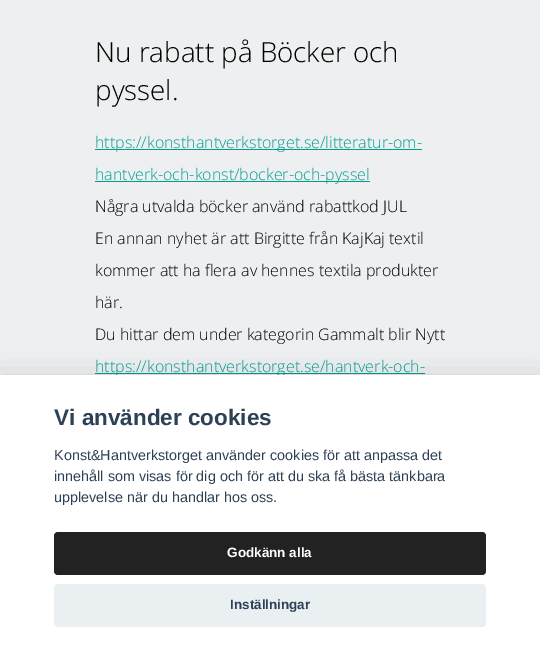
%!PS-Adobe-3.0
%%BoundingBox: 0 0 540 657
%%LanguageLevel: 3
%%Pages: 1
%%EndComments
%%BeginProlog
/setink { 3 { 255 div 3 1 roll } repeat setrgbcolor } def
/usefont { [ exch dup neg 0 0 3 -1 roll 0 0 ] selectfont } def
/drawtext { setink usefont moveto show } def
/fillbox { setink rectfill } def
/setalpha { dup .setfillconstantalpha .setstrokeconstantalpha } def
/rrect { 5 dict begin { /r /h /w /y /x } { exch def } forall
  x r add y moveto x w add y 2 copy h add r arct x w add y h add x 1 index r arct
  x y h add x y r arct x y 2 copy exch w add exch r arct closepath end } def
/softshadow { 12 dict begin { /a /b /q /h /w /y /x } { exch def } forall gsave /was 0 def
  9 -2 -9 { dup b mul 4 div /e exch def 1 sub .425 mul 2.718 exch exp 1 add a .99 .min exch div /now exch def
    1 1 now sub 1 was sub div sub setalpha /was now def
    w h .min e 2 mul add 0 gt { x e sub y e sub w e 2 mul add h e 2 mul add
      q e add b .6 mul add w h .min 2 div e add .min 0 .max rrect fill } if } for grestore end } def
%%EndProlog
%%BeginSetup
<< /PageSize [540 657] /PageUsesTransparency true >> setpagedevice
%%EndSetup
%%Page: 1 1
0 .pushpdf14devicefilter
0 657 translate 1 -1 scale
4 setmiterlimit
0 0 540 657 238 239 240 fillbox
(Nu rabatt på Böcker och) 95 62 /OpenSans-Light 27.75 0 0 0 drawtext
(pyssel.) 95 100 /OpenSans-Light 27.75 0 0 0 drawtext
95 149 327 1 0 158 145 fillbox
(https://konsthantverkstorget.se/litteratur-om-) 95 148 /OpenSans-Light 16 0 158 145 drawtext
95 181 275 1 0 158 145 fillbox
(hantverk-och-konst/bocker-och-pyssel) 95 180 /OpenSans-Light 16 0 158 145 drawtext
(Några utvalda böcker använd rabattkod JUL) 95 212 /OpenSans-Light 16 0 0 0 drawtext
(En annan nyhet är att Birgitte från KajKaj textil) 95 244 /OpenSans-Light 16 0 0 0 drawtext
(kommer att ha flera av hennes textila produkter) 95 276 /OpenSans-Light 16 0 0 0 drawtext
(här.) 95 308 /OpenSans-Light 16 0 0 0 drawtext
(Du hittar dem under kategorin Gammalt blir Nytt) 95 340 /OpenSans-Light 16 0 0 0 drawtext
95 373 330 1 0 158 145 fillbox
(https://konsthantverkstorget.se/hantverk-och-) 95 372 /OpenSans-Light 16 0 158 145 drawtext
2 2 3 setink
0 385 540 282 0 15 0.28 softshadow
0 375 540 282 255 255 255 fillbox
(Vi använder cookies) 54 425 /LiberationSans-Bold 22.5 45 65 86 drawtext
(Konst&Hantverkstorget använder cookies för att anpassa det) 54 460 /LiberationSans-Regular 14.4 45 65 86 drawtext
(innehåll som visas för dig och för att du ska få bästa tänkbara) 54 481 /LiberationSans-Regular 14.4 45 65 86 drawtext
(upplevelse när du handlar hos oss.) 54 502 /LiberationSans-Regular 14.4 45 65 86 drawtext
34 34 34 setink
54 532 432 43 4 rrect fill
(Godkänn alla) 227 557 /LiberationSans-Bold 13.5 255 255 255 drawtext
234 239 242 setink
54 584 432 43 4 rrect fill
(Inställningar) 230 609 /LiberationSans-Bold 13.5 45 65 86 drawtext
.poppdf14devicefilter showpage
%%EOF
